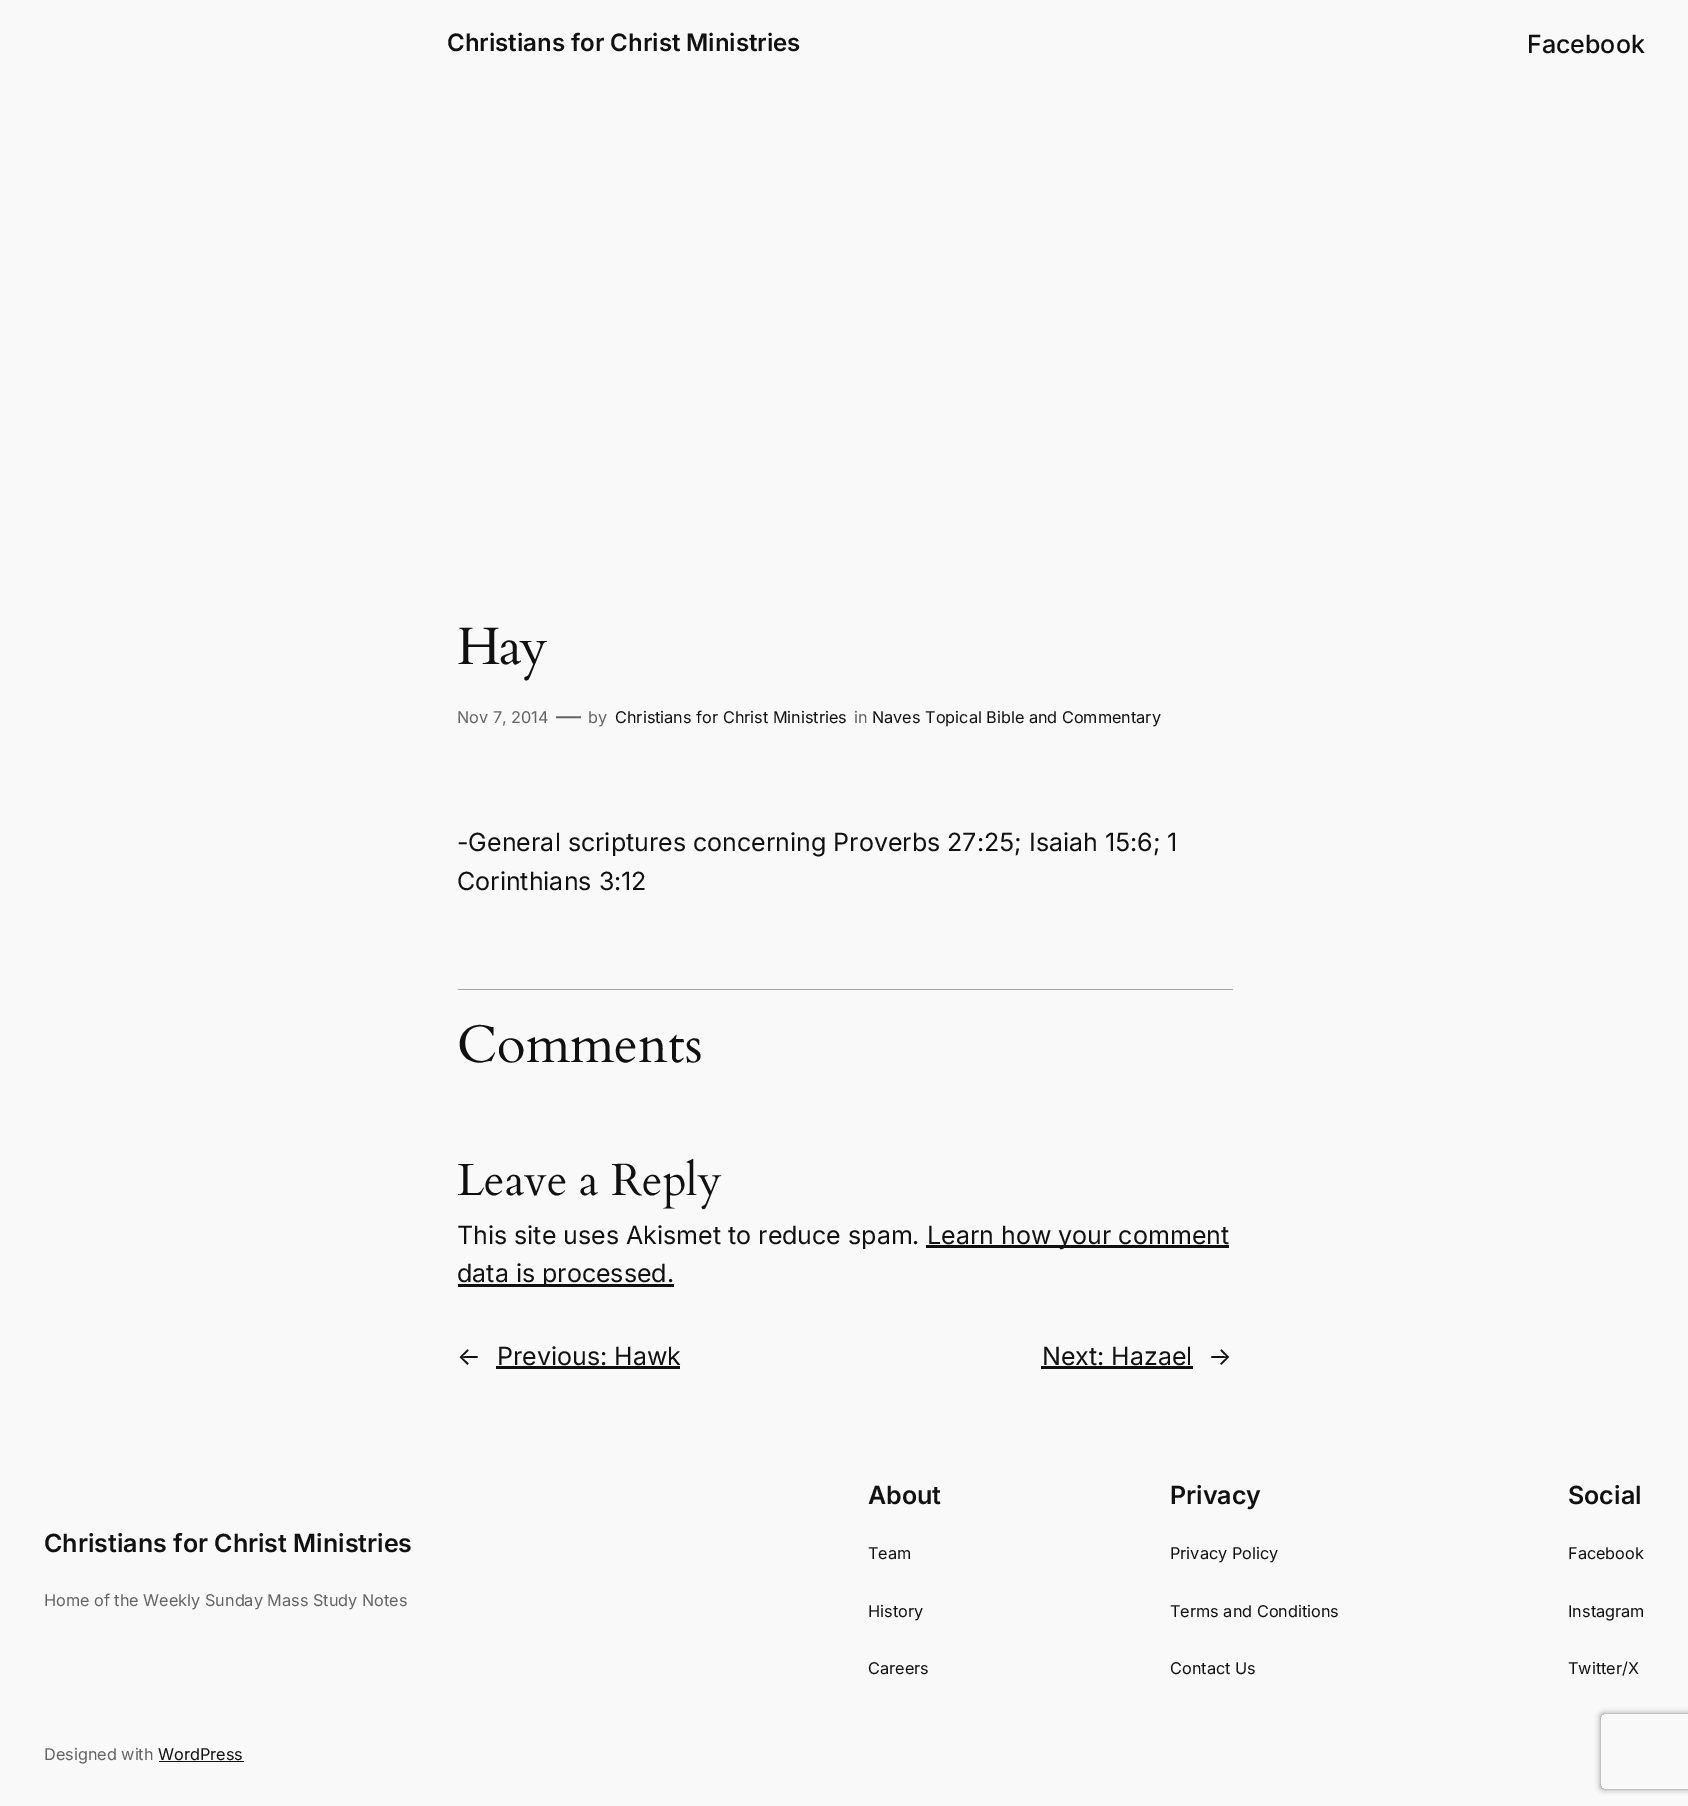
%!PS-Adobe-3.0
%%BoundingBox: 0 0 1688 1806
%%LanguageLevel: 3
%%Pages: 1
%%EndComments
%%BeginProlog
/setink { 3 { 255 div 3 1 roll } repeat setrgbcolor } def
/usefont { [ exch dup neg 0 0 3 -1 roll 0 0 ] selectfont } def
/drawtext { setink usefont moveto show } def
/fillbox { setink rectfill } def
/setalpha { dup .setfillconstantalpha .setstrokeconstantalpha } def
/rrect { 5 dict begin { /r /h /w /y /x } { exch def } forall
  x r add y moveto x w add y 2 copy h add r arct x w add y h add x 1 index r arct
  x y h add x y r arct x y 2 copy exch w add exch r arct closepath end } def
/softshadow { 12 dict begin { /a /b /q /h /w /y /x } { exch def } forall gsave /was 0 def
  9 -2 -9 { dup b mul 4 div /e exch def 1 sub .425 mul 2.718 exch exp 1 add a .99 .min exch div /now exch def
    1 1 now sub 1 was sub div sub setalpha /was now def
    w h .min e 2 mul add 0 gt { x e sub y e sub w e 2 mul add h e 2 mul add
      q e add b .6 mul add w h .min 2 div e add .min 0 .max rrect fill } if } for grestore end } def
%%EndProlog
%%BeginSetup
<< /PageSize [1688 1806] /PageUsesTransparency true >> setpagedevice
%%EndSetup
%%Page: 1 1
0 .pushpdf14devicefilter
0 1806 translate 1 -1 scale
4 setmiterlimit
0 0 1688 1806 249 249 249 fillbox
(Christians for Christ Ministries) 447 51 /Inter-SemiBold 24 17 17 17 drawtext
(Facebook) 1527 53 /Inter-Medium 25 17 17 17 drawtext
/Cardo-Regular 52.5 usefont
457 664 moveto -2 0 (Hay) ashow
(Nov 7, 2014) 457 723 /Inter-Regular 16.25 99 99 99 drawtext
(—) 556 725 /Inter-Regular 25 99 99 99 drawtext
(by) 588 723 /Inter-Regular 16.25 99 99 99 drawtext
(Christians for Christ Ministries) 615 723 /Inter-Regular 16.25 17 17 17 drawtext
(in) 854 723 /Inter-Regular 16.25 99 99 99 drawtext
(Naves Topical Bible and Commentary) 872 723 /Inter-Regular 16.25 17 17 17 drawtext
(-General scriptures concerning Proverbs 27:25; Isaiah 15:6; 1) 457 851 /Inter-Regular 25 17 17 17 drawtext
(Corinthians 3:12) 457 890 /Inter-Regular 25 17 17 17 drawtext
458 989 775 1 164 164 164 fillbox
(Comments) 457 1062 /Cardo-Regular 52.5 17 17 17 drawtext
(Leave a Reply) 457 1195 /Cardo-Regular 45 17 17 17 drawtext
(This site uses Akismet to reduce spam.) 457 1244 /Inter-Regular 25 17 17 17 drawtext
926 1245 303 3 17 17 17 fillbox
(Learn how your comment) 927 1244 /Inter-Regular 25 17 17 17 drawtext
458 1284 216 3 17 17 17 fillbox
(data is processed.) 457 1282 /Inter-Regular 25 17 17 17 drawtext
(←) 457 1365 /Inter-Regular 25 17 17 17 drawtext
(Previous: Hawk) 497 1365 /Inter-Regular 25 17 17 17 drawtext
496 1366 184 3 17 17 17 fillbox
(Next: Hazael) 1042 1365 /Inter-Regular 25 17 17 17 drawtext
1041 1366 152 3 17 17 17 fillbox
(→) 1208 1365 /Inter-Regular 25 17 17 17 drawtext
(Christians for Christ Ministries) 44 1552 /Inter-SemiBold 25 17 17 17 drawtext
(Home of the Weekly Sunday Mass Study Notes) 44 1606 /Inter-Regular 16.25 99 99 99 drawtext
(About) 868 1504 /Inter-SemiBold 25 17 17 17 drawtext
(Team) 868 1559 /Inter-Regular 16.25 17 17 17 drawtext
(History) 868 1617 /Inter-Regular 16.25 17 17 17 drawtext
(Careers) 868 1674 /Inter-Regular 16.25 17 17 17 drawtext
(Privacy) 1170 1504 /Inter-SemiBold 25 17 17 17 drawtext
(Privacy Policy) 1170 1559 /Inter-Regular 16.25 17 17 17 drawtext
(Terms and Conditions) 1170 1617 /Inter-Regular 16.25 17 17 17 drawtext
(Contact Us) 1170 1674 /Inter-Regular 16.25 17 17 17 drawtext
(Social) 1568 1504 /Inter-SemiBold 25 17 17 17 drawtext
(Facebook) 1568 1559 /Inter-Regular 16.25 17 17 17 drawtext
(Instagram) 1568 1617 /Inter-Regular 16.25 17 17 17 drawtext
(Twitter/X) 1568 1674 /Inter-Regular 16.25 17 17 17 drawtext
(Designed with) 44 1760 /Inter-Regular 16.25 99 99 99 drawtext
(WordPress) 158 1760 /Inter-Regular 16.25 17 17 17 drawtext
159 1761 85 1 17 17 17 fillbox
gsave
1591 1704 moveto 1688 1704 lineto 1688 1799 lineto 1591 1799 lineto closepath 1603.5 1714 moveto 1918.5 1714 lineto 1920 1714 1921 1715 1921 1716.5 curveto 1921 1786.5 lineto 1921 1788 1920 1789 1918.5 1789 curveto 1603.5 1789 lineto 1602 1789 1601 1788 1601 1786.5 curveto 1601 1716.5 lineto 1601 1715 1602 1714 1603.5 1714 curveto closepath eoclip newpath
128 128 128 setink
1601 1714 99 75 2.5 3 1 softshadow
grestore
.poppdf14devicefilter showpage
%%EOF
